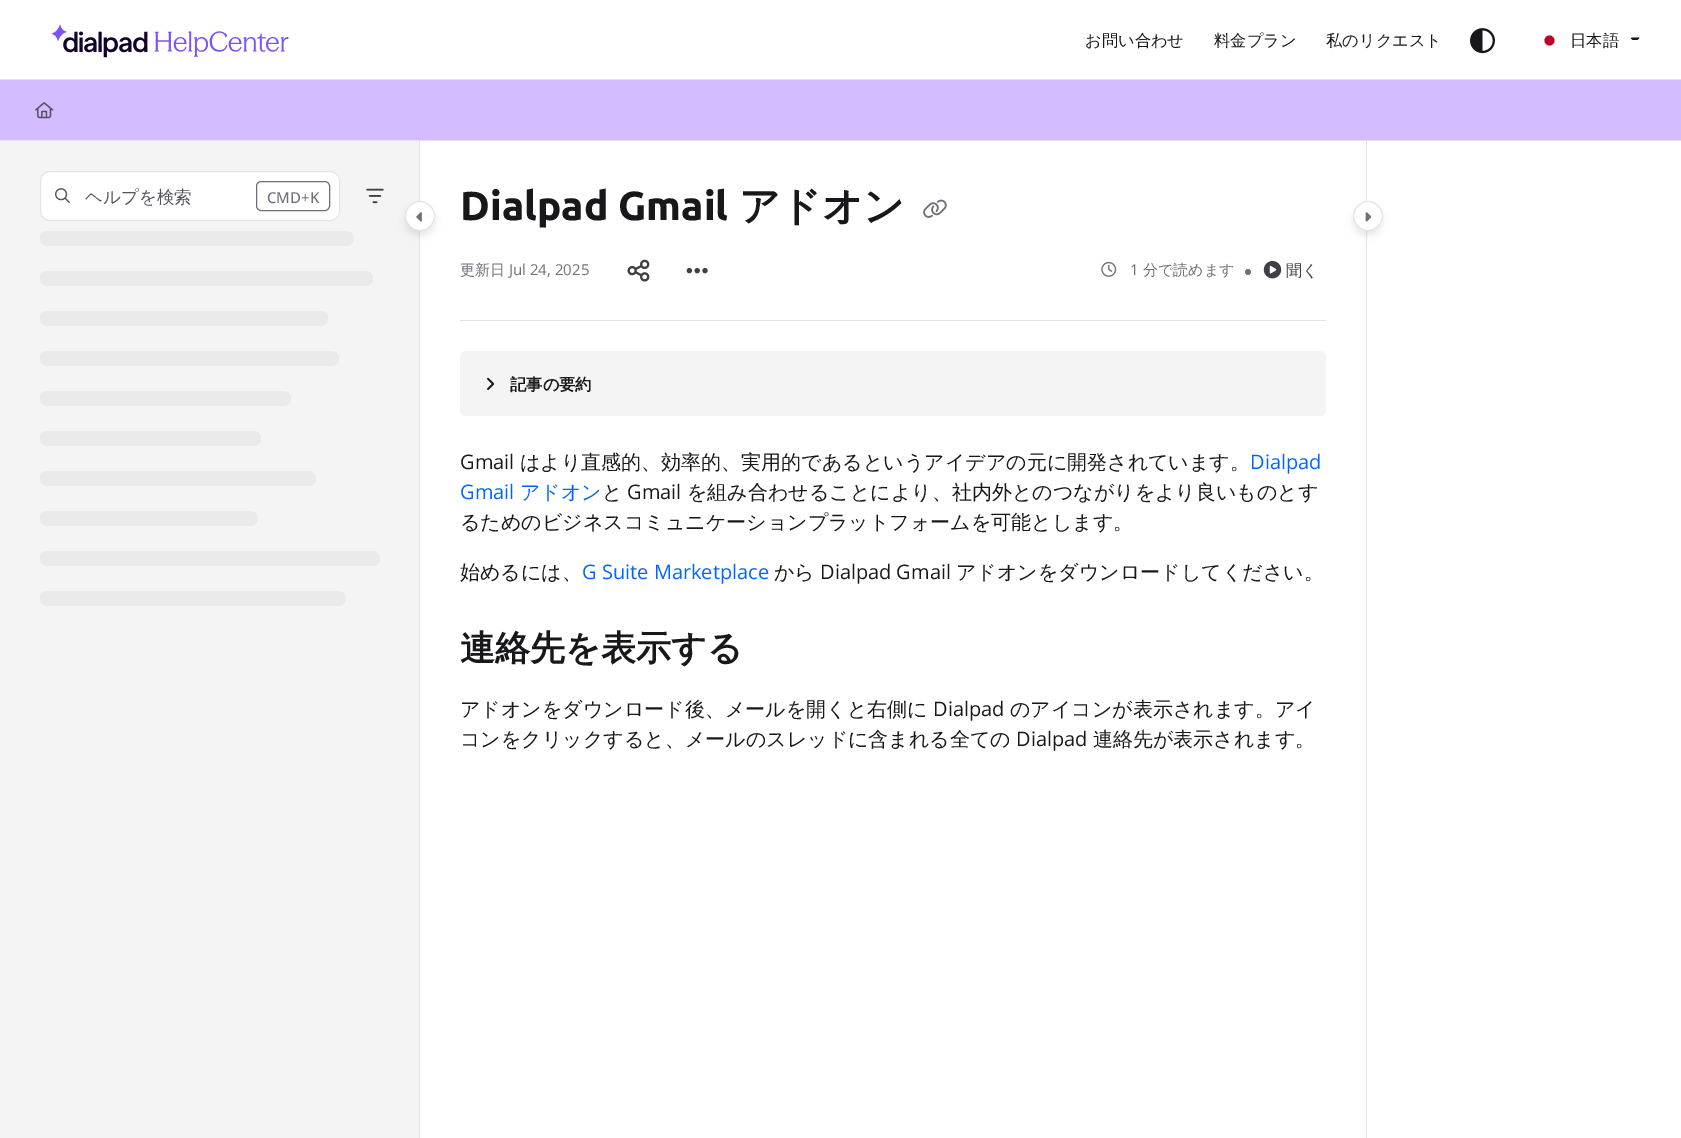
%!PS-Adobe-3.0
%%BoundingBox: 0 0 1681 1138
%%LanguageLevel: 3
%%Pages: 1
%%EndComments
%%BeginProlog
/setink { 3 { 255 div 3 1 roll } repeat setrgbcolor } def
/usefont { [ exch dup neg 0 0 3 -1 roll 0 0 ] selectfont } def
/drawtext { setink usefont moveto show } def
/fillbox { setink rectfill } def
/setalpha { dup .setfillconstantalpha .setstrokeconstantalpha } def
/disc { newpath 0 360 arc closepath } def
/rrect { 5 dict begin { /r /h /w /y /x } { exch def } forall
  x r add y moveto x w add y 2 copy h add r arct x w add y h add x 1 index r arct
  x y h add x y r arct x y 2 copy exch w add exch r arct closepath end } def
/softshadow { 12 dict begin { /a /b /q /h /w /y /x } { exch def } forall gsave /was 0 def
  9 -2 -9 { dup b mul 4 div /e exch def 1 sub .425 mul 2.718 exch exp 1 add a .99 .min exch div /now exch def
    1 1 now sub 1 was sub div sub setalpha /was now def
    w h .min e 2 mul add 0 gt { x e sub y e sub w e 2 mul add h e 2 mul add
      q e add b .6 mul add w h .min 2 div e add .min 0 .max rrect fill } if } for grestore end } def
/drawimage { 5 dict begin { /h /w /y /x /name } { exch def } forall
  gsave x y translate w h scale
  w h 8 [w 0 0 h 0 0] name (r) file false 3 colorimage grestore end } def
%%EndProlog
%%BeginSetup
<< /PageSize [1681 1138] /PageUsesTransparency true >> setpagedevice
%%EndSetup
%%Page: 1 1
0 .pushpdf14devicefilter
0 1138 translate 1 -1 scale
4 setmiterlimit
0 0 1681 1138 255 255 255 fillbox
(assets/img1.rgb) 51 24 238 34 drawimage
(お問い合わせ) 1085 46 /WenQuanYiZenHei-Medium 16.25 24 24 27 drawtext
(料金プラン) 1214 46 /WenQuanYiZenHei-Medium 16.25 24 24 27 drawtext
(私のリクエスト) 1326 46 /WenQuanYiZenHei-Medium 16.25 24 24 27 drawtext
(assets/img2.rgb) 1470 28 25 26 drawimage
188 0 45 setink
1549.5 40.5 5 disc fill
(日本語) 1570 46 /WenQuanYiZenHei-Medium 16.25 24 24 27 drawtext
1632.5 37.5 moveto 1638.5 37.5 lineto 1639.5 38 lineto 1637.5 40 lineto 1632.5 40 lineto 1631 38.5 lineto 1631 38 1631.5 37.5 1632.5 37.5 curveto closepath fill
0 79 1681 1 228 228 231 fillbox
0 140 1681 1 228 228 231 fillbox
0 80 1681 60 211 188 255 fillbox
(assets/img3.rgb) 35 102 19 17 drawimage
419 141 1 997 228 228 231 fillbox
0 141 419 997 244 244 245 fillbox
255 255 255 setink
40.5 171.5 299 49 9.5 rrect gsave fill grestore
228 228 231 setink
stroke
(assets/img4.rgb) 55 188 15 16 drawimage
(ヘルプを検索) 85 203 /WenQuanYiZenHei-Medium 17.5 81 82 92 drawtext
112 112 122 setink
256.5 181.5 73 29 4.5 rrect stroke
(CMD+K) 267 203 /OpenSans-Medium 15 112 112 122 drawtext
(assets/img5.rgb) 366 188 18 16 drawimage
0 0 0 setink
406 208 28 27 13.5 4 0.1 softshadow
255 255 255 setink
420 216 14.5 disc gsave fill grestore
228 228 231 setink
stroke
(assets/img6.rgb) 416 212 6 10 drawimage
234 234 235 setink
40 231 314 15 7.5 rrect fill
40 271 333 15 7.5 rrect fill
40 311 288 15 7.5 rrect fill
40 351 299 15 7.5 rrect fill
40 391 251 15 7.5 rrect fill
40 431 221 15 7.5 rrect fill
40 471 276 15 7.5 rrect fill
40 511 218 15 7.5 rrect fill
40 551 340 15 7.5 rrect fill
40 591 306 15 7.5 rrect fill
(Dialpad Gmail) 460 220 /Ubuntu-Bold 40.5 24 24 27 drawtext
(アドオン) 739 220 /WenQuanYiZenHei-Bold 40.5 24 24 27 drawtext
(assets/img7.rgb) 923 199 24 19 drawimage
(更新日) 460 275 /WenQuanYiZenHei-Medium 15 112 112 122 drawtext
(Jul 24, 2025) 509 275 /OpenSans-Regular 15 112 112 122 drawtext
(assets/img8.rgb) 627 259 23 23 drawimage
(assets/img9.rgb) 686 267 22 7 drawimage
(assets/img10.rgb) 1101 261 16 16 drawimage
(1) 1130 275 /OpenSans-Regular 15 112 112 122 drawtext
(分で読めます) 1143 275 /WenQuanYiZenHei-Medium 15 112 112 122 drawtext
1248 272 3 disc fill
(assets/img11.rgb) 1263 260 19 19 drawimage
(聞く) 1286 276 /WenQuanYiZenHei-Medium 16 63 63 70 drawtext
460 320 866 1 228 228 231 fillbox
244 244 245 setink
460 351 866 65 6 rrect fill
(assets/img12.rgb) 487 377 8 13 drawimage
(記事の要約) 510 390 /WenQuanYiZenHei-Bold 16.25 24 24 27 drawtext
(Gmail) 460 469 /OpenSans-Regular 20 24 24 27 drawtext
(はより直感的、効率的、実用的であるというアイデアの元に開発されています。) 520 469 /WenQuanYiZenHei-Medium 20 24 24 27 drawtext
(Dialpad) 1250 469 /OpenSans-Regular 20 0 101 255 drawtext
(Gmail) 460 499 /OpenSans-Regular 20 0 101 255 drawtext
(アドオン) 520 499 /WenQuanYiZenHei-Medium 20 0 101 255 drawtext
(と) 602 499 /WenQuanYiZenHei-Medium 20 24 24 27 drawtext
(Gmail) 627 499 /OpenSans-Regular 20 24 24 27 drawtext
(を組み合わせることにより、社内外とのつながりをより良いものとす) 687 499 /WenQuanYiZenHei-Medium 20 24 24 27 drawtext
(るためのビジネスコミュニケーションプラットフォームを可能とします。) 460 529 /WenQuanYiZenHei-Medium 20 24 24 27 drawtext
(始めるには、) 460 579 /WenQuanYiZenHei-Medium 20 24 24 27 drawtext
(G Suite Marketplace) 582 579 /OpenSans-Regular 20 0 101 255 drawtext
(から) 774 579 /WenQuanYiZenHei-Medium 20 24 24 27 drawtext
(Dialpad Gmail) 820 579 /OpenSans-Regular 20 24 24 27 drawtext
(アドオンをダウンロードしてください。) 956 579 /WenQuanYiZenHei-Medium 20 24 24 27 drawtext
(連絡先を表示する) 460 660 /WenQuanYiZenHei-Bold 35 24 24 27 drawtext
(アドオンをダウンロード後、メールを開くと右側に) 460 716 /WenQuanYiZenHei-Medium 20 24 24 27 drawtext
(Dialpad) 933 716 /OpenSans-Regular 20 24 24 27 drawtext
(のアイコンが表示されます。アイ) 1010 716 /WenQuanYiZenHei-Medium 20 24 24 27 drawtext
(コンをクリックすると、メールのスレッドに含まれる全ての) 460 746 /WenQuanYiZenHei-Medium 20 24 24 27 drawtext
(Dialpad) 1016 746 /OpenSans-Regular 20 24 24 27 drawtext
(連絡先が表示されます。) 1093 746 /WenQuanYiZenHei-Medium 20 24 24 27 drawtext
1366 141 1 997 228 228 231 fillbox
0 0 0 setink
1354 208 27 27 13.5 4 0.1 softshadow
255 255 255 setink
1368 216 14.5 disc gsave fill grestore
228 228 231 setink
stroke
(assets/img13.rgb) 1365 212 7 10 drawimage
.poppdf14devicefilter showpage
%%EOF
